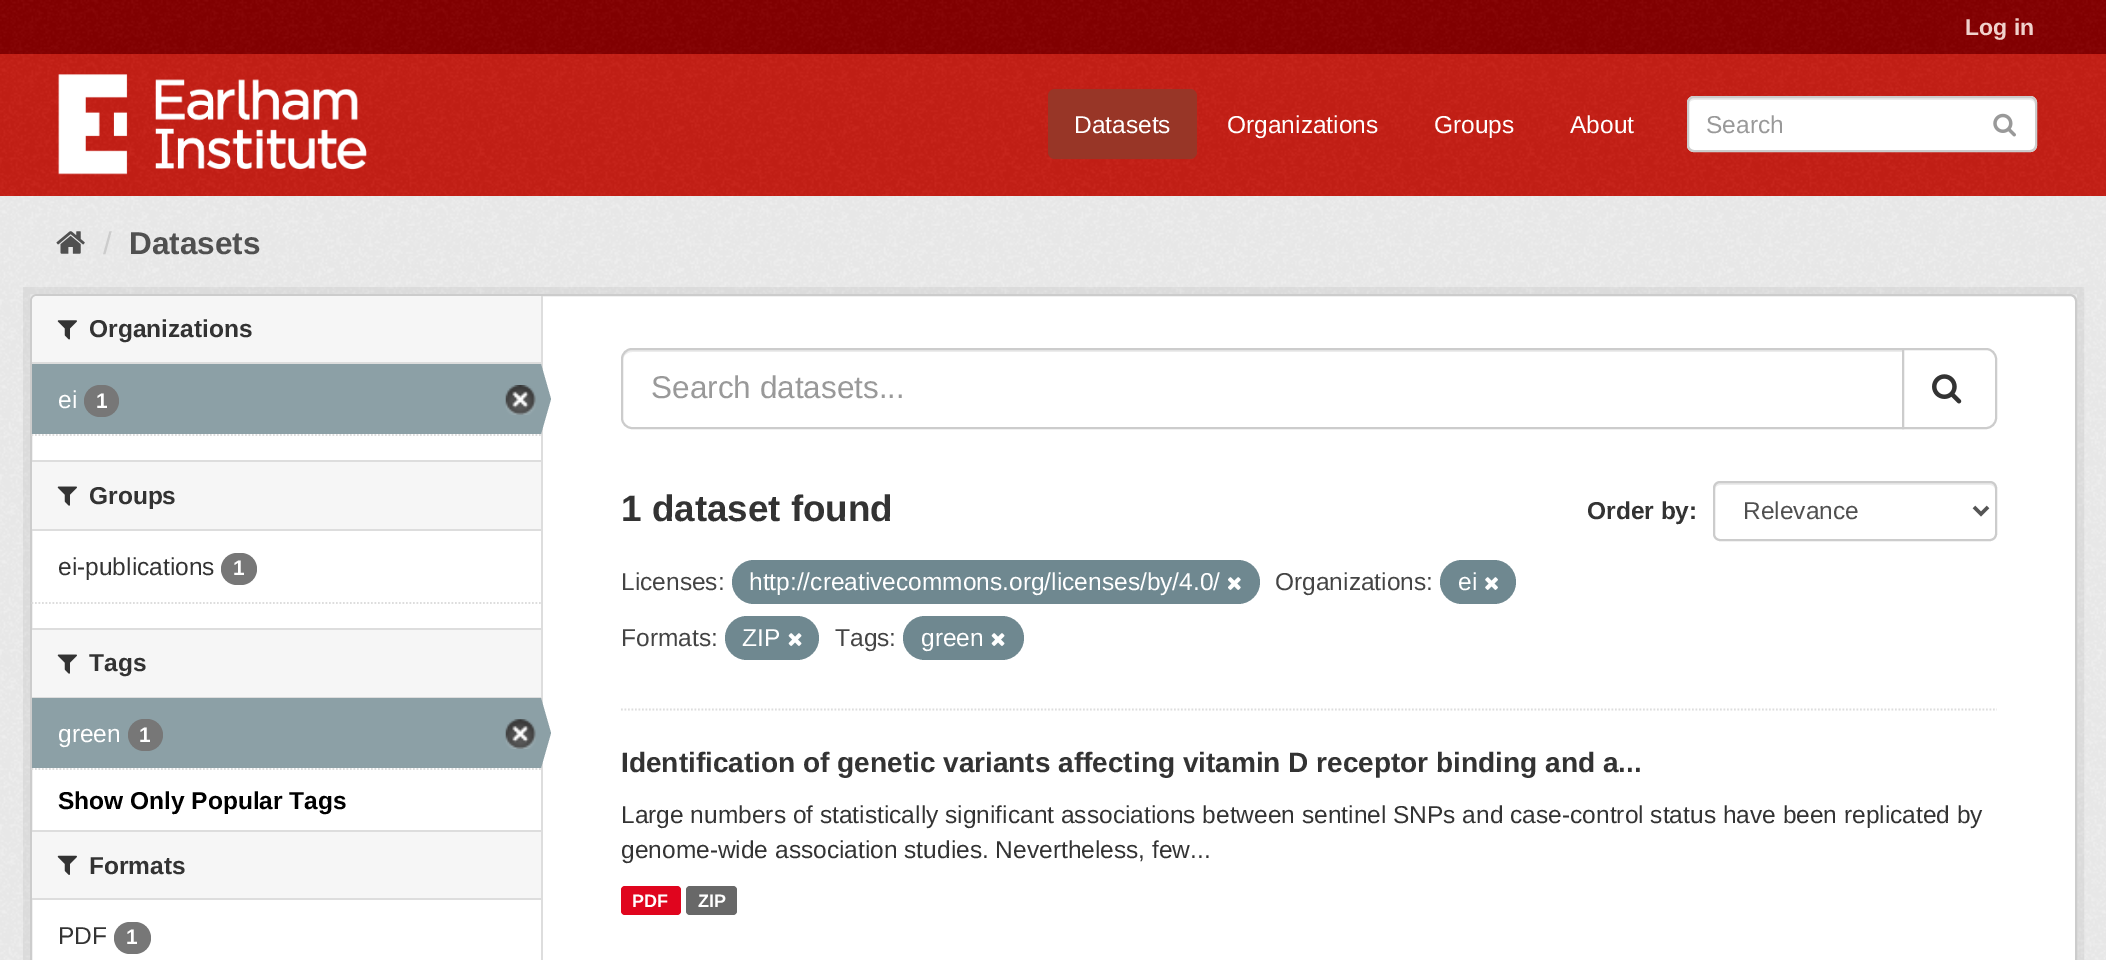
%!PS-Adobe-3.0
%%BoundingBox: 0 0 2106 960
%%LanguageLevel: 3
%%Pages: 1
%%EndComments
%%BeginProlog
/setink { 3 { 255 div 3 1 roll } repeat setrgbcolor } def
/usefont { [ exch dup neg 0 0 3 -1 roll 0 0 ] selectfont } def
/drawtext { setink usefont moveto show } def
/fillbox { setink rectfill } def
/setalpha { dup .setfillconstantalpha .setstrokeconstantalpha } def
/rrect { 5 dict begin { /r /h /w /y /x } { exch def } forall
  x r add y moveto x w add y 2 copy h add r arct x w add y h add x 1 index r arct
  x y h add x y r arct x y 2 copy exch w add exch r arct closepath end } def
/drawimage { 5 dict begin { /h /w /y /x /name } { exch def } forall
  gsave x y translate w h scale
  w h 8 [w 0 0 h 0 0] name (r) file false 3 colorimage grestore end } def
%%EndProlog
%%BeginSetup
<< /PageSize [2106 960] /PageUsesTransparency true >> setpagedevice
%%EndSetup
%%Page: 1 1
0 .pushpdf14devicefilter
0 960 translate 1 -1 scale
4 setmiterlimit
0 0 2106 960 133 0 1 fillbox
(assets/img1.rgb) 0 0 2106 54 drawimage
(Log in) 1965 35 /LiberationSans-Bold 23 240 209 204 drawtext
0 54 2106 142 198 31 22 fillbox
(assets/img2.rgb) 0 54 2106 142 drawimage
(assets/img3.rgb) 58 74 309 101 drawimage
152 54 39 setink
1048 89 149 70 7 rrect fill
(Datasets) 1074 133 /LiberationSans-Regular 24.5 255 255 255 drawtext
(Organizations) 1227 133 /LiberationSans-Regular 24.5 255 255 255 drawtext
(Groups) 1434 133 /LiberationSans-Regular 24.5 255 255 255 drawtext
(About) 1570 133 /LiberationSans-Regular 24.5 255 255 255 drawtext
1687 96 350 56 7 rrect fill
236 236 236 setink
1694 100 moveto 2030 100 lineto 2033 100 2035 102 2035 105 curveto 2035 102 2034 98 2030 98 curveto 1694 98 lineto 1690 98 1689 102 1689 105 curveto 1689 102 1691 100 1694 100 curveto closepath fill
204 204 204 setink
2 setlinewidth
1688 97 348 54 6 rrect stroke
(Search) 1706 133 /LiberationSans-Regular 24.5 153 153 153 drawtext
(assets/img4.rgb) 1993 113 23 24 drawimage
0 196 2106 764 238 238 238 fillbox
(assets/img5.rgb) 0 196 2106 764 drawimage
(assets/img6.rgb) 56 231 29 23 drawimage
(/) 103 254 /LiberationSans-Regular 31.5 204 204 204 drawtext
(Datasets) 129 254 /LiberationSans-Bold 31.5 80 80 80 drawtext
0.05 setalpha
0 0 0 setink
7 setlinewidth
26.5 290.5 2054 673 rectstroke
1 setalpha
255 255 255 setink
31 295 2045 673 6 rrect gsave fill grestore
204 204 204 setink
2 setlinewidth
stroke
246 246 246 setink
37 296 moveto 541 296 lineto 541 364 lineto 32 364 lineto 32 301 lineto 32 298 34 296 37 296 curveto closepath fill
32 362 509 2 221 221 221 fillbox
(assets/img7.rgb) 57 320 20 20 drawimage
(Organizations) 89 337 /LiberationSans-Bold 24.5 51 51 51 drawtext
32 364 509 70 140 160 166 fillbox
(ei) 58 408 /LiberationSans-Regular 24.5 255 255 255 drawtext
119 119 119 setink
84 385 35 32 16 rrect fill
(1) 96 408 /LiberationSans-Bold 21 255 255 255 drawtext
(assets/img8.rgb) 505 385 31 30 drawimage
541 296 2 664 221 221 221 fillbox
140 160 166 setink
541 434 moveto 541 364 lineto 551 399 lineto closepath fill
221 221 221 setink
1.8 setlinewidth
[1.75 1.75] 0 setdash
31.5 435 moveto 541 435 lineto stroke
32 462 509 67 246 246 246 fillbox
32 460 509 2 221 221 221 fillbox
32 529 509 2 221 221 221 fillbox
(assets/img9.rgb) 57 486 20 20 drawimage
(Groups) 89 504 /LiberationSans-Bold 24.5 51 51 51 drawtext
(ei-publications) 58 575 /LiberationSans-Regular 24.5 51 51 51 drawtext
119 119 119 setink
221 553 36 32 16 rrect fill
(1) 233 575 /LiberationSans-Bold 21 255 255 255 drawtext
221 221 221 setink
31.5 603 moveto 541 603 lineto stroke
32 630 509 67 246 246 246 fillbox
32 628 509 2 221 221 221 fillbox
32 697 509 1 221 221 221 fillbox
(assets/img9.rgb) 57 654 20 20 drawimage
(Tags) 89 671 /LiberationSans-Bold 24.5 51 51 51 drawtext
32 698 509 70 140 160 166 fillbox
(green) 58 742 /LiberationSans-Regular 24.5 255 255 255 drawtext
119 119 119 setink
128 719 35 32 16 rrect fill
(1) 139 742 /LiberationSans-Bold 21 255 255 255 drawtext
(assets/img10.rgb) 505 719 31 30 drawimage
140 160 166 setink
541 768 moveto 541 698 lineto 551 733 lineto closepath fill
221 221 221 setink
31.5 769 moveto 541 769 lineto stroke
(Show Only Popular Tags) 58 809 /LiberationSans-Bold 24.5 0 0 0 drawtext
32 832 509 66 246 246 246 fillbox
32 830 509 2 221 221 221 fillbox
32 898 509 2 221 221 221 fillbox
(assets/img11.rgb) 57 855 20 20 drawimage
(Formats) 89 874 /LiberationSans-Bold 24.5 51 51 51 drawtext
(PDF) 58 944 /LiberationSans-Regular 24.5 51 51 51 drawtext
119 119 119 setink
114 922 37 32 16 rrect fill
(1) 126 944 /LiberationSans-Bold 21 255 255 255 drawtext
221 221 221 setink
621 709.5 moveto 1997 709.5 lineto stroke
236 236 236 setink
632 352 moveto 1902 352 lineto 1902 350 lineto 632 350 lineto 627 350 623 354 623 359 curveto 623 360 lineto 623 356 627 352 632 352 curveto closepath fill
204 204 204 setink
2 setlinewidth
[] 0 setdash
632 349 moveto 1903 349 lineto 1903 428 lineto 632 428 lineto 626.5 428 622 423.5 622 418 curveto 622 359 lineto 622 353.5 626.5 349 632 349 curveto closepath stroke
(Search datasets...) 651 398 /LiberationSans-Regular 31.5 153 153 153 drawtext
255 255 255 setink
1903 349 moveto 1986 349 lineto 1991.5 349 1996 353.5 1996 359 curveto 1996 418 lineto 1996 423.5 1991.5 428 1986 428 curveto 1903 428 lineto closepath gsave fill grestore
204 204 204 setink
stroke
(assets/img12.rgb) 1932 374 30 30 drawimage
(1 dataset found) 621 521 /LiberationSans-Bold 36.75 51 51 51 drawtext
(Order by:) 1587 519 /LiberationSans-Bold 24.5 51 51 51 drawtext
236 236 236 setink
1720 485 moveto 1990 485 lineto 1993 485 1995 487 1995 490 curveto 1995 488 lineto 1995 485 1993 483 1990 483 curveto 1720 483 lineto 1717 483 1715 485 1715 488 curveto 1715 490 lineto 1715 487 1717 485 1720 485 curveto closepath fill
204 204 204 setink
1714 482 282 58 6 rrect stroke
85 85 85 setink
3.5 setlinewidth
1974 507 moveto 1981 514 lineto 1988 507 lineto stroke
(Relevance) 1743 519 /LiberationSans-Regular 24.5 80 80 80 drawtext
(Licenses:) 621 590 /LiberationSans-Regular 24.5 68 68 68 drawtext
111 136 144 setink
732 560 528 44 22 rrect fill
(http://creativecommons.org/licenses/by/4.0/) 749 590 /LiberationSans-Regular 24.5 255 255 255 drawtext
(assets/img13.rgb) 1228 577 13 13 drawimage
(Organizations:) 1275 590 /LiberationSans-Regular 24.5 68 68 68 drawtext
111 136 144 setink
1440 560 76 44 22 rrect fill
(ei) 1458 590 /LiberationSans-Regular 24.5 255 255 255 drawtext
(assets/img14.rgb) 1485 577 13 13 drawimage
(Formats:) 621 646 /LiberationSans-Regular 24.5 68 68 68 drawtext
111 136 144 setink
725 616 94 44 22 rrect fill
(ZIP) 742 646 /LiberationSans-Regular 24.5 255 255 255 drawtext
(assets/img15.rgb) 788 633 14 13 drawimage
(Tags:) 835 646 /LiberationSans-Regular 24.5 68 68 68 drawtext
111 136 144 setink
903 616 121 44 22 rrect fill
(green) 921 646 /LiberationSans-Regular 24.5 255 255 255 drawtext
(assets/img16.rgb) 991 633 14 13 drawimage
(Identification of genetic variants affecting vitamin D receptor binding and a...) 621 772 /LiberationSans-Bold 28 51 51 51 drawtext
(Large numbers of statistically significant associations between sentinel SNPs and case-control status have been replicated by) 621 823 /LiberationSans-Regular 24.5 51 51 51 drawtext
(genome-wide association studies. Nevertheless, few...) 621 858 /LiberationSans-Regular 24.5 51 51 51 drawtext
224 5 30 setink
621 886 60 29 4 rrect fill
(PDF) 632 907 /LiberationSans-Bold 18 255 255 255 drawtext
104 104 104 setink
686 886 51 29 4 rrect fill
(ZIP) 698 907 /LiberationSans-Bold 18 255 255 255 drawtext
.poppdf14devicefilter showpage
%%EOF
